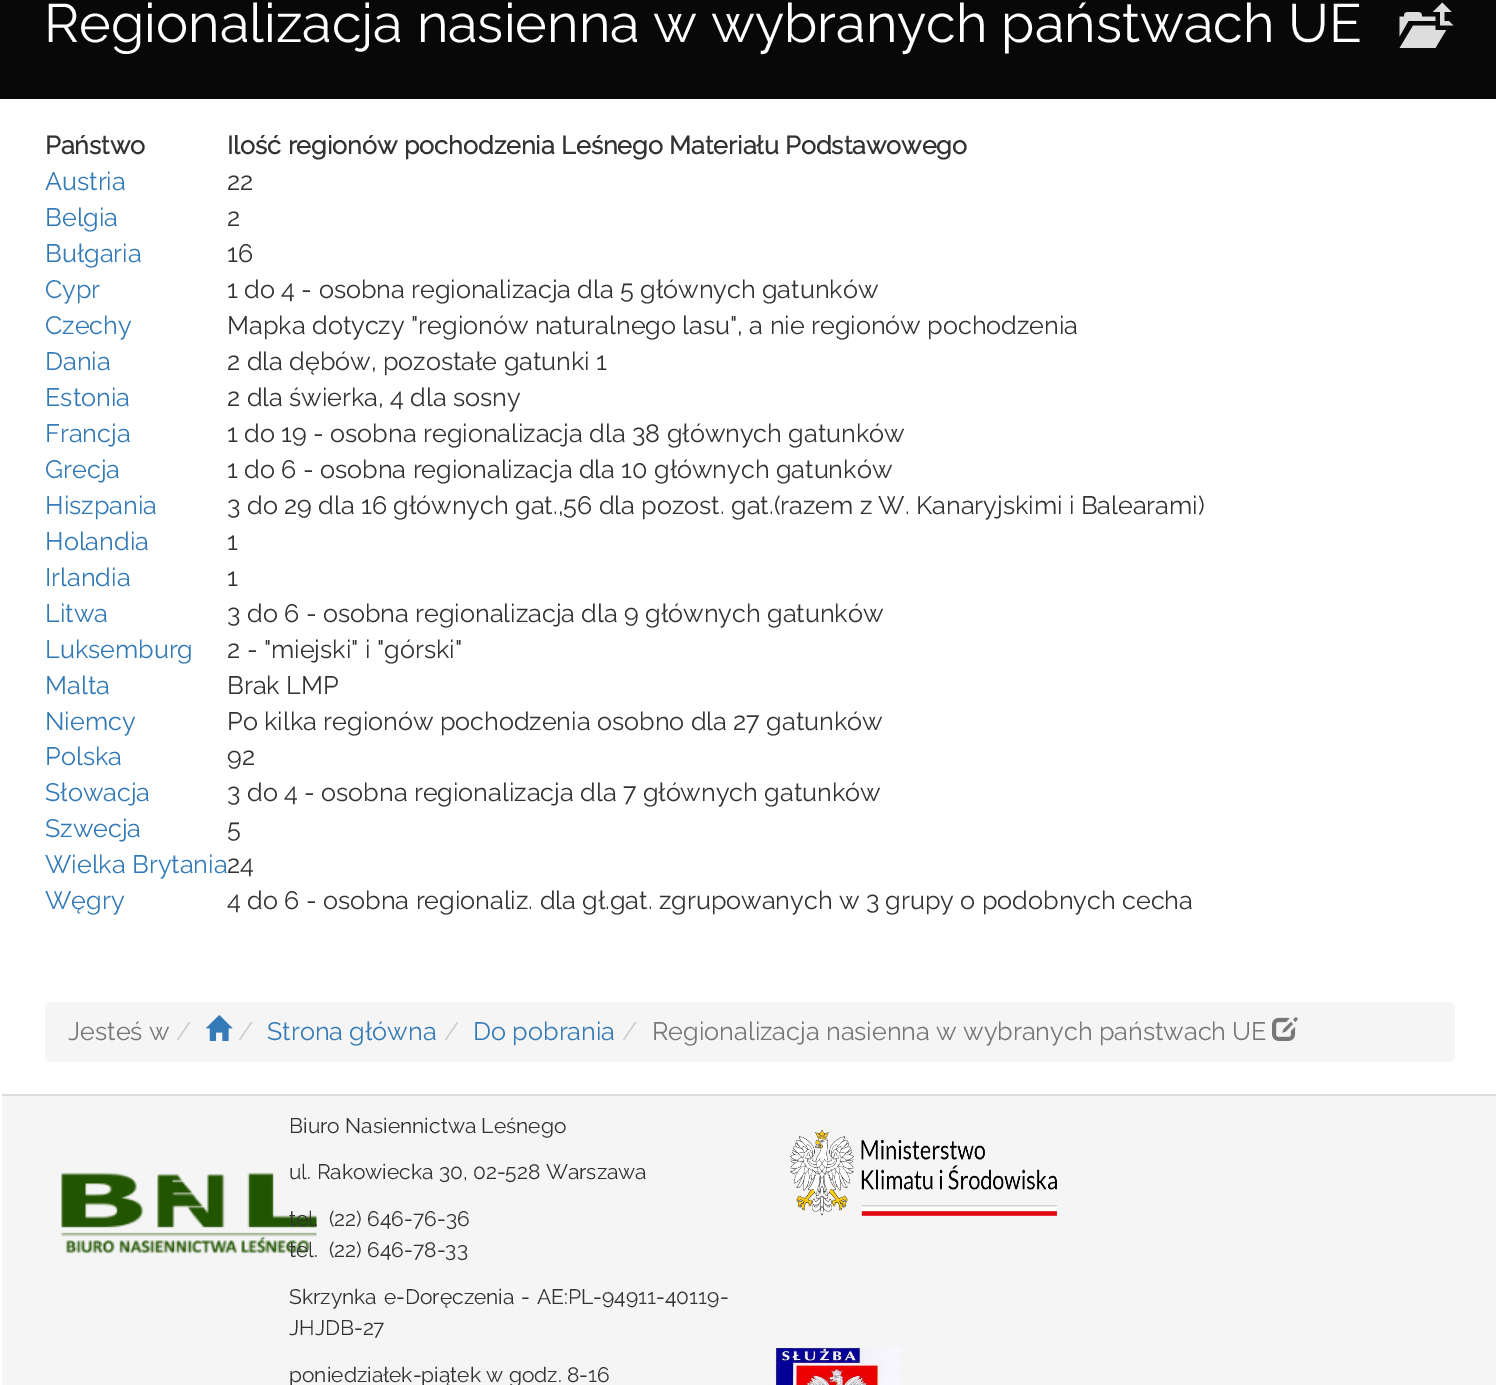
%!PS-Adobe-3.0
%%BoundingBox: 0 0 1496 1385
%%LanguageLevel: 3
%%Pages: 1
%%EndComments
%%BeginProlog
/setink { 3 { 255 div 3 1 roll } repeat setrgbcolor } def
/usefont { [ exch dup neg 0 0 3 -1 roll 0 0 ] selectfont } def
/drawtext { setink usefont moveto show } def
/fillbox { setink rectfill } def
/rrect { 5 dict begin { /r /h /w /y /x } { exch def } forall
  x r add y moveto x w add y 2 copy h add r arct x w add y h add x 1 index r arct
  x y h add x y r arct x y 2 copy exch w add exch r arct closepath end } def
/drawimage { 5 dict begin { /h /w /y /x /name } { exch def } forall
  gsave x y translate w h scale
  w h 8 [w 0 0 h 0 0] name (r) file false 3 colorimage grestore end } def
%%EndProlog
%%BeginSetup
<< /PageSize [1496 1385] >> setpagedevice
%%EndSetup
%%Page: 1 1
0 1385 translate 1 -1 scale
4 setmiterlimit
0 0 1496 1385 255 255 255 fillbox
0 0 1496 99 8 8 8 fillbox
(Regionalizacja nasienna w wybranych państwach UE) 44 42 /Raleway-Thin 54 255 255 255 drawtext
(assets/img1.rgb) 1399 2 55 46 drawimage
(Państwo) 45 154 /Raleway-Bold 25.2 51 51 51 drawtext
(Ilość regionów pochodzenia Leśnego Materiału Podstawowego) 227 154 /Raleway-Bold 25.2 51 51 51 drawtext
(Austria) 45 190 /Raleway-Thin 25.2 51 122 183 drawtext
(22) 227 190 /Raleway-Thin 25.2 51 51 51 drawtext
(Belgia) 45 226 /Raleway-Thin 25.2 51 122 183 drawtext
(2) 227 226 /Raleway-Thin 25.2 51 51 51 drawtext
(Bułgaria) 45 262 /Raleway-Thin 25.2 51 122 183 drawtext
(16) 227 262 /Raleway-Thin 25.2 51 51 51 drawtext
(Cypr) 45 298 /Raleway-Thin 25.2 51 122 183 drawtext
(1 do 4 - osobna regionalizacja dla 5 głównych gatunków) 227 298 /Raleway-Thin 25.2 51 51 51 drawtext
(Czechy) 45 334 /Raleway-Thin 25.2 51 122 183 drawtext
(Mapka dotyczy "regionów naturalnego lasu", a nie regionów pochodzenia) 227 334 /Raleway-Thin 25.2 51 51 51 drawtext
(Dania) 45 370 /Raleway-Thin 25.2 51 122 183 drawtext
(2 dla dębów, pozostałe gatunki 1) 227 370 /Raleway-Thin 25.2 51 51 51 drawtext
(Estonia) 45 406 /Raleway-Thin 25.2 51 122 183 drawtext
(2 dla świerka, 4 dla sosny) 227 406 /Raleway-Thin 25.2 51 51 51 drawtext
(Francja) 45 442 /Raleway-Thin 25.2 51 122 183 drawtext
(1 do 19 - osobna regionalizacja dla 38 głównych gatunków) 227 442 /Raleway-Thin 25.2 51 51 51 drawtext
(Grecja) 45 478 /Raleway-Thin 25.2 51 122 183 drawtext
(1 do 6 - osobna regionalizacja dla 10 głównych gatunków) 227 478 /Raleway-Thin 25.2 51 51 51 drawtext
(Hiszpania) 45 514 /Raleway-Thin 25.2 51 122 183 drawtext
(3 do 29 dla 16 głównych gat.,56 dla pozost. gat.\(razem z W. Kanaryjskimi i Balearami\)) 227 514 /Raleway-Thin 25.2 51 51 51 drawtext
(Holandia) 45 550 /Raleway-Thin 25.2 51 122 183 drawtext
(1) 227 550 /Raleway-Thin 25.2 51 51 51 drawtext
(Irlandia) 45 586 /Raleway-Thin 25.2 51 122 183 drawtext
(1) 227 586 /Raleway-Thin 25.2 51 51 51 drawtext
(Litwa) 45 622 /Raleway-Thin 25.2 51 122 183 drawtext
(3 do 6 - osobna regionalizacja dla 9 głównych gatunków) 227 622 /Raleway-Thin 25.2 51 51 51 drawtext
(Luksemburg) 45 658 /Raleway-Thin 25.2 51 122 183 drawtext
(2 - "miejski" i "górski") 227 658 /Raleway-Thin 25.2 51 51 51 drawtext
(Malta) 45 694 /Raleway-Thin 25.2 51 122 183 drawtext
(Brak LMP) 227 694 /Raleway-Thin 25.2 51 51 51 drawtext
(Niemcy) 45 730 /Raleway-Thin 25.2 51 122 183 drawtext
(Po kilka regionów pochodzenia osobno dla 27 gatunków) 227 730 /Raleway-Thin 25.2 51 51 51 drawtext
(Polska) 45 765 /Raleway-Thin 25.2 51 122 183 drawtext
(92) 227 765 /Raleway-Thin 25.2 51 51 51 drawtext
(Słowacja) 45 801 /Raleway-Thin 25.2 51 122 183 drawtext
(3 do 4 - osobna regionalizacja dla 7 głównych gatunków) 227 801 /Raleway-Thin 25.2 51 51 51 drawtext
(Szwecja) 45 837 /Raleway-Thin 25.2 51 122 183 drawtext
(5) 227 837 /Raleway-Thin 25.2 51 51 51 drawtext
(Wielka Brytania) 45 873 /Raleway-Thin 25.2 51 122 183 drawtext
(24) 227 873 /Raleway-Thin 25.2 51 51 51 drawtext
(Węgry) 45 909 /Raleway-Thin 25.2 51 122 183 drawtext
(4 do 6 - osobna regionaliz. dla gł.gat. zgrupowanych w 3 grupy o podobnych cecha) 227 909 /Raleway-Thin 25.2 51 51 51 drawtext
245 245 245 setink
45 1002 1410 60 6 rrect fill
(Jesteś w) 68 1040 /Raleway-Thin 25.2 119 119 119 drawtext
(/) 176 1040 /Raleway-Thin 25.2 204 204 204 drawtext
(assets/img2.rgb) 205 1015 28 26 drawimage
(/) 238 1040 /Raleway-Thin 25.2 204 204 204 drawtext
(Strona główna) 267 1040 /Raleway-Thin 25.2 51 122 183 drawtext
(/) 444 1040 /Raleway-Thin 25.2 204 204 204 drawtext
(Do pobrania) 473 1040 /Raleway-Thin 25.2 51 122 183 drawtext
(/) 622 1040 /Raleway-Thin 25.2 204 204 204 drawtext
(Regionalizacja nasienna w wybranych państwach UE) 652 1040 /Raleway-Thin 25.2 119 119 119 drawtext
(assets/img3.rgb) 1272 1017 26 24 drawimage
2 1096 1494 289 245 245 245 fillbox
2 1094 1494 2 221 221 221 fillbox
(assets/img4.rgb) 61 1172 256 82 drawimage
(Biuro Nasiennictwa Leśnego) 289 1133 /Raleway-Thin 21 51 51 51 drawtext
(ul. Rakowiecka 30, 02-528 Warszawa) 289 1179 /Raleway-Thin 21 51 51 51 drawtext
(tel.  \(22\) 646-76-36) 289 1226 /Raleway-Thin 21 51 51 51 drawtext
(tel.  \(22\) 646-78-33) 289 1257 /Raleway-Thin 21 51 51 51 drawtext
289 1304 moveto 1.5 0 32 (Skrzynka e-Doręczenia - AE:PL-94911-40119-) widthshow
(JHJDB-27) 289 1335 /Raleway-Thin 21 51 51 51 drawtext
(poniedziałek-piątek w godz. 8-16) 289 1382 /Raleway-Thin 21 51 51 51 drawtext
(assets/img5.rgb) 790 1130 267 86 drawimage
(assets/img6.rgb) 774 1347 126 38 drawimage
showpage
%%EOF
